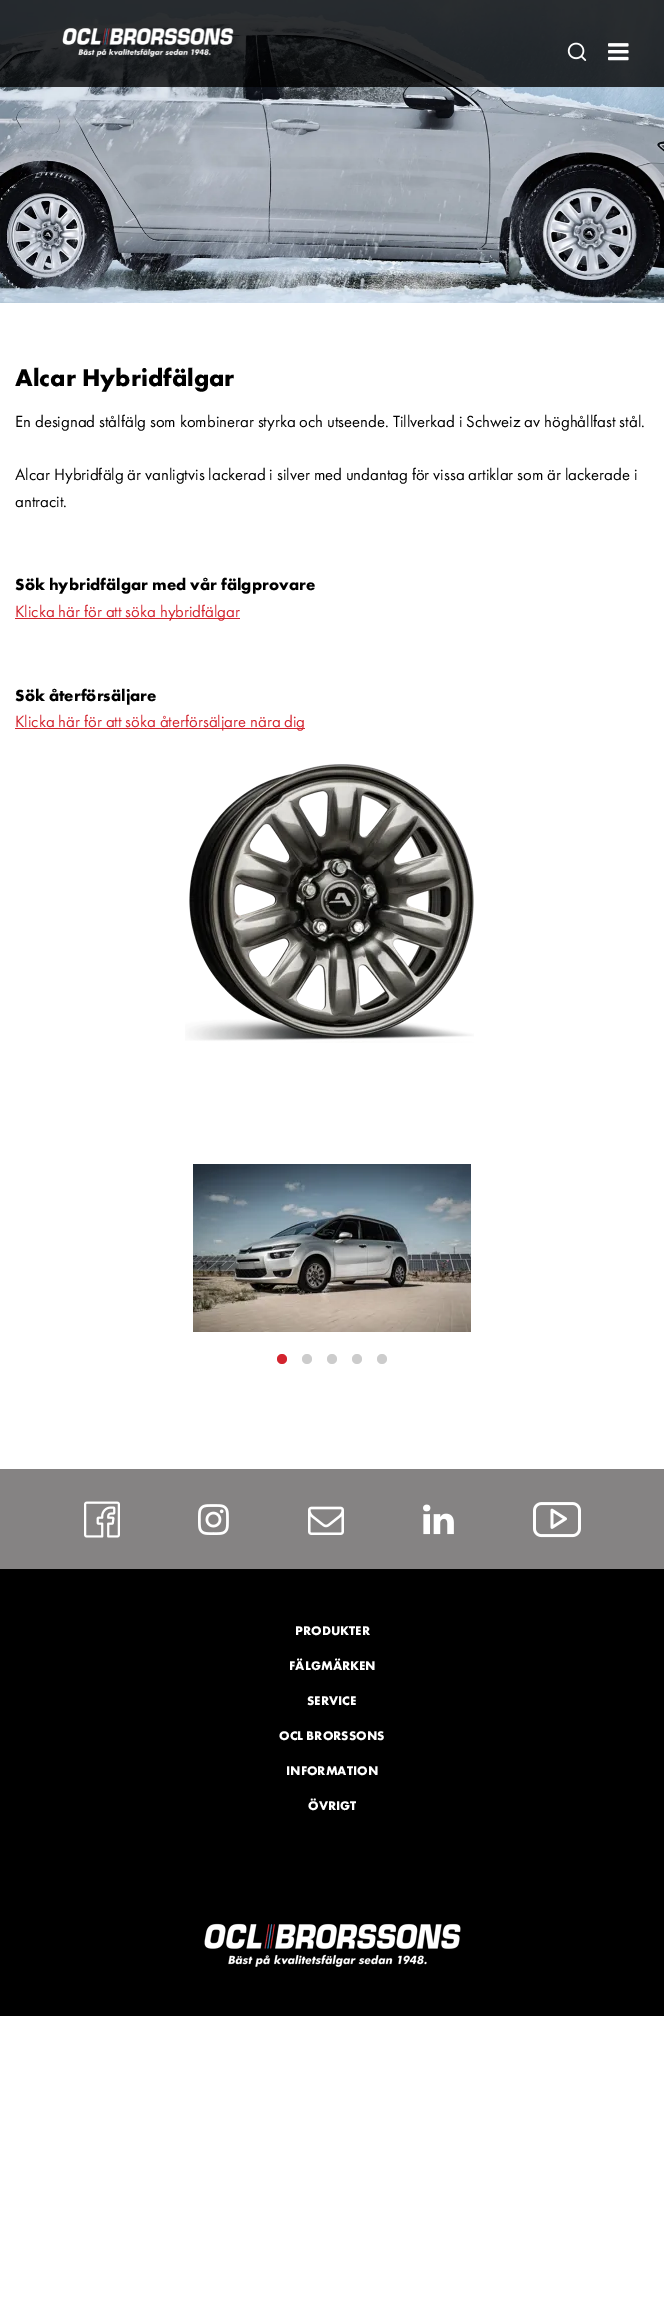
%!PS-Adobe-3.0
%%BoundingBox: 0 0 664 2309
%%LanguageLevel: 3
%%Pages: 1
%%EndComments
%%BeginProlog
/setink { 3 { 255 div 3 1 roll } repeat setrgbcolor } def
/usefont { [ exch dup neg 0 0 3 -1 roll 0 0 ] selectfont } def
/drawtext { setink usefont moveto show } def
/fillbox { setink rectfill } def
/setalpha { dup .setfillconstantalpha .setstrokeconstantalpha } def
/disc { newpath 0 360 arc closepath } def
/drawimage { 5 dict begin { /h /w /y /x /name } { exch def } forall
  gsave x y translate w h scale
  w h 8 [w 0 0 h 0 0] name (r) file false 3 colorimage grestore end } def
%%EndProlog
%%BeginSetup
<< /PageSize [664 2309] /PageUsesTransparency true >> setpagedevice
%%EndSetup
%%Page: 1 1
0 .pushpdf14devicefilter
0 2309 translate 1 -1 scale
4 setmiterlimit
0 0 664 2309 255 255 255 fillbox
(assets/img4.rgb) 0 0 664 303 drawimage
0.8 setalpha
0 0 664 87 0 0 0 fillbox
1 setalpha
(assets/img1.rgb) 62 28 172 29 drawimage
(assets/img2.rgb) 567 42 20 19 drawimage
(assets/img3.rgb) 608 43 21 18 drawimage
(Alcar Hybridfälgar) 15 386 /Futura-Bold 25 0 0 0 drawtext
(En designad stålfälg som kombinerar styrka och utseende. Tillverkad i Schweiz av höghållfast stål.) 15 427 /FuturaPT-Regular 16.7 0 0 0 drawtext
(Alcar Hybridfälg är vanligtvis lackerad i silver med undantag för vissa artiklar som är lackerade i) 15 480 /FuturaPT-Regular 16.7 0 0 0 drawtext
(antracit.) 15 507 /FuturaPT-Regular 16.7 0 0 0 drawtext
(Sök hybridfälgar med vår fälgprovare) 15 590 /Futura-Bold 16.7 0 0 0 drawtext
15 618 225 1 211 36 46 fillbox
(Klicka här för att söka hybridfälgar) 15 617 /FuturaPT-Regular 16.7 211 36 46 drawtext
(Sök återförsäljare) 15 701 /Futura-Bold 16.7 0 0 0 drawtext
15 728 290 1 211 36 46 fillbox
(Klicka här för att söka återförsäljare nära dig) 15 727 /FuturaPT-Regular 16.7 211 36 46 drawtext
(assets/img5.rgb) 185 764 289 279 drawimage
(assets/img6.rgb) 193 1164 278 168 drawimage
282 1359 5 disc fill
204 204 204 setink
307 1359 5 disc fill
332 1359 5 disc fill
357 1359 5 disc fill
382 1359 5 disc fill
0 1469 664 100 133 131 131 fillbox
(assets/img7.rgb) 84 1501 36 37 drawimage
(assets/img8.rgb) 198 1504 31 31 drawimage
(assets/img9.rgb) 308 1506 36 29 drawimage
(assets/img10.rgb) 423 1504 31 31 drawimage
(assets/img11.rgb) 533 1502 48 36 drawimage
0 1569 664 447 0 0 0 fillbox
(PRODUKTER) 295 1635 /Futura-Bold 13 255 255 255 drawtext
(FÄLGMÄRKEN) 289 1670 /Futura-Bold 13 255 255 255 drawtext
(SERVICE) 307 1705 /Futura-Bold 13 255 255 255 drawtext
(OCL BRORSSONS) 279 1740 /Futura-Bold 13 255 255 255 drawtext
(INFORMATION) 286 1775 /Futura-Bold 13 255 255 255 drawtext
(ÖVRIGT) 308 1810 /Futura-Bold 13 255 255 255 drawtext
(assets/img12.rgb) 204 1923 257 44 drawimage
.poppdf14devicefilter showpage
%%EOF
